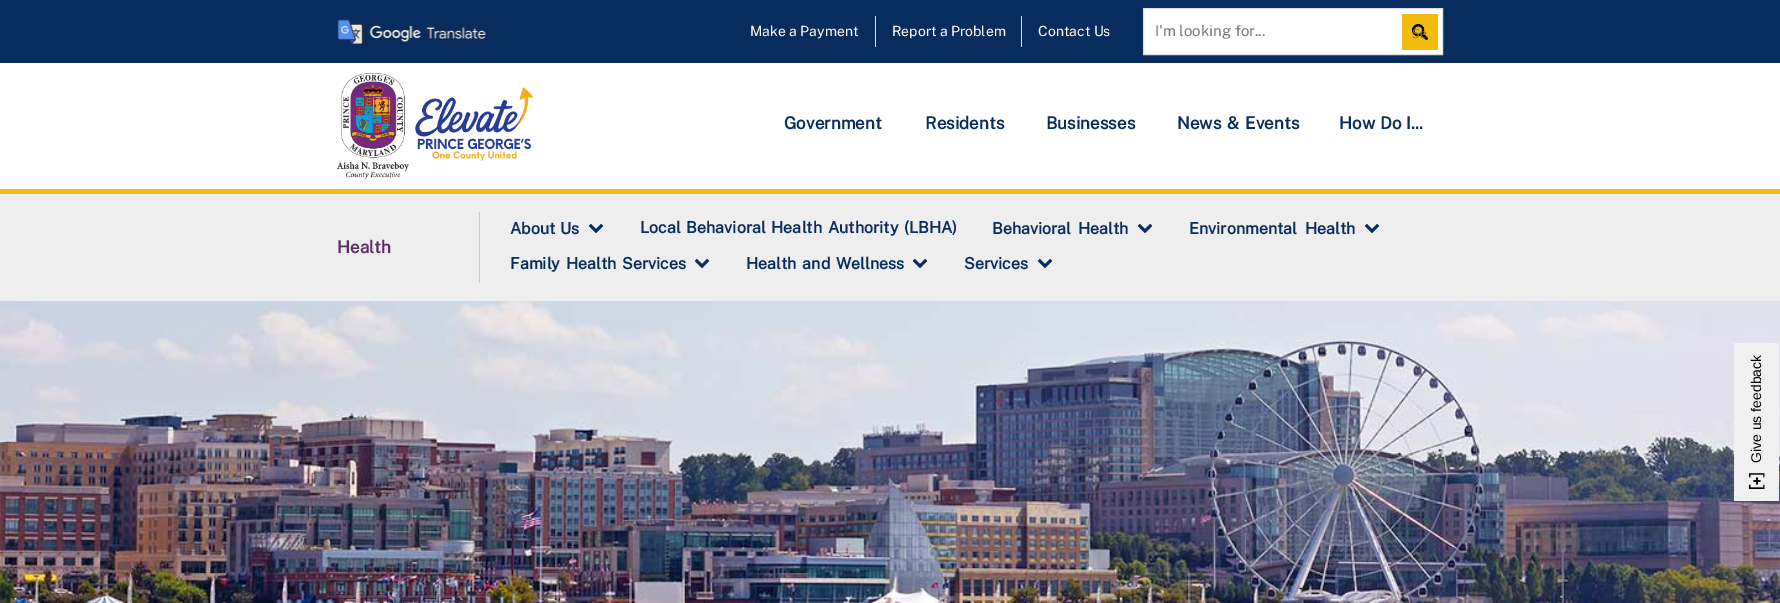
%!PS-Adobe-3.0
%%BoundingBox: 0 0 1780 603
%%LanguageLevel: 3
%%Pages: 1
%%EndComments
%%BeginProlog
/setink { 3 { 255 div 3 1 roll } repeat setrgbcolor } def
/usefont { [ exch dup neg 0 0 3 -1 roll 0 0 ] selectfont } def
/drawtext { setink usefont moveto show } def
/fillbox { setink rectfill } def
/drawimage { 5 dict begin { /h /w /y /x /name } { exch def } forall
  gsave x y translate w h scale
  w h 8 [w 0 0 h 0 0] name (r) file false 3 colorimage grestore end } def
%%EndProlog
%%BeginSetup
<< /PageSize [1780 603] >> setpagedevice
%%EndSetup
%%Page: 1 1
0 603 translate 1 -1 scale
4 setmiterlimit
0 0 1780 603 255 255 255 fillbox
0 0 1780 63 9 44 94 fillbox
(assets/img1.rgb) 337 19 149 25 drawimage
875 16 1 31 224 224 224 fillbox
(Make a Payment) 750 36 /PublicSans-Regular 14 255 255 255 drawtext
1021 16 1 31 224 224 224 fillbox
(Report a Problem) 892 36 /PublicSans-Regular 14 255 255 255 drawtext
(Contact Us) 1038 36 /PublicSans-Regular 14 255 255 255 drawtext
1143.5 8.5 moveto 1442.5 8.5 lineto 1442.5 54.5 lineto 1143.5 54.5 lineto closepath gsave fill grestore
224 224 224 setink
stroke
(I'm looking for...) 1155 36 /PublicSans-Regular 15 117 117 117 drawtext
1402 14 36 36 242 187 15 fillbox
(assets/img2.rgb) 1412 24 16 16 drawimage
(Se) 1412 38 /LiberationSerif-Regular 14 131 101 8 drawtext
(assets/img3.rgb) 337 73 196 106 drawimage
(Government) 784 129 /PublicSans-Bold 17 9 44 94 drawtext
(Residents) 925 129 /PublicSans-Bold 17 9 44 94 drawtext
(Businesses) 1046 129 /PublicSans-Bold 17 9 44 94 drawtext
1177 129 moveto 2 0 32 (News & Events) widthshow
1339 129 moveto 1 0 32 (How Do I...) widthshow
0 189 1780 5 242 187 15 fillbox
0 194 1780 107 238 238 238 fillbox
(Health) 337 253 /PublicSans-Bold 17 93 43 100 drawtext
479 212 1 71 201 201 201 fillbox
/PublicSans-Bold 16 usefont
9 44 94 setink
510 234 moveto 1 0 32 (About Us) widthshow
(assets/img4.rgb) 588 224 16 10 drawimage
640 233 moveto 2 0 32 (Local Behavioral Health Authority \(LBHA\)) widthshow
992 234 moveto 3 0 32 (Behavioral Health) widthshow
(assets/img4.rgb) 1137 224 16 10 drawimage
1189 234 moveto 4 0 32 (Environmental Health) widthshow
(assets/img4.rgb) 1364 224 16 10 drawimage
510 269 moveto 2 0 32 (Family Health Services) widthshow
(assets/img4.rgb) 694 259 16 10 drawimage
746 269 moveto 2 0 32 (Health and Wellness) widthshow
(assets/img4.rgb) 912 259 16 10 drawimage
(Services) 964 269 /PublicSans-Bold 16 9 44 94 drawtext
(assets/img4.rgb) 1037 259 16 10 drawimage
(assets/img5.rgb) 0 301 1780 302 drawimage
1734 343 45 158 240 240 240 fillbox
/LiberationSans-Regular 14 usefont
0 0 0 setink
gsave 1761 463 translate -90 rotate 0 0 moveto (Give us feedback) show grestore
(assets/img6.rgb) 1748 473 17 16 drawimage
showpage
%%EOF
